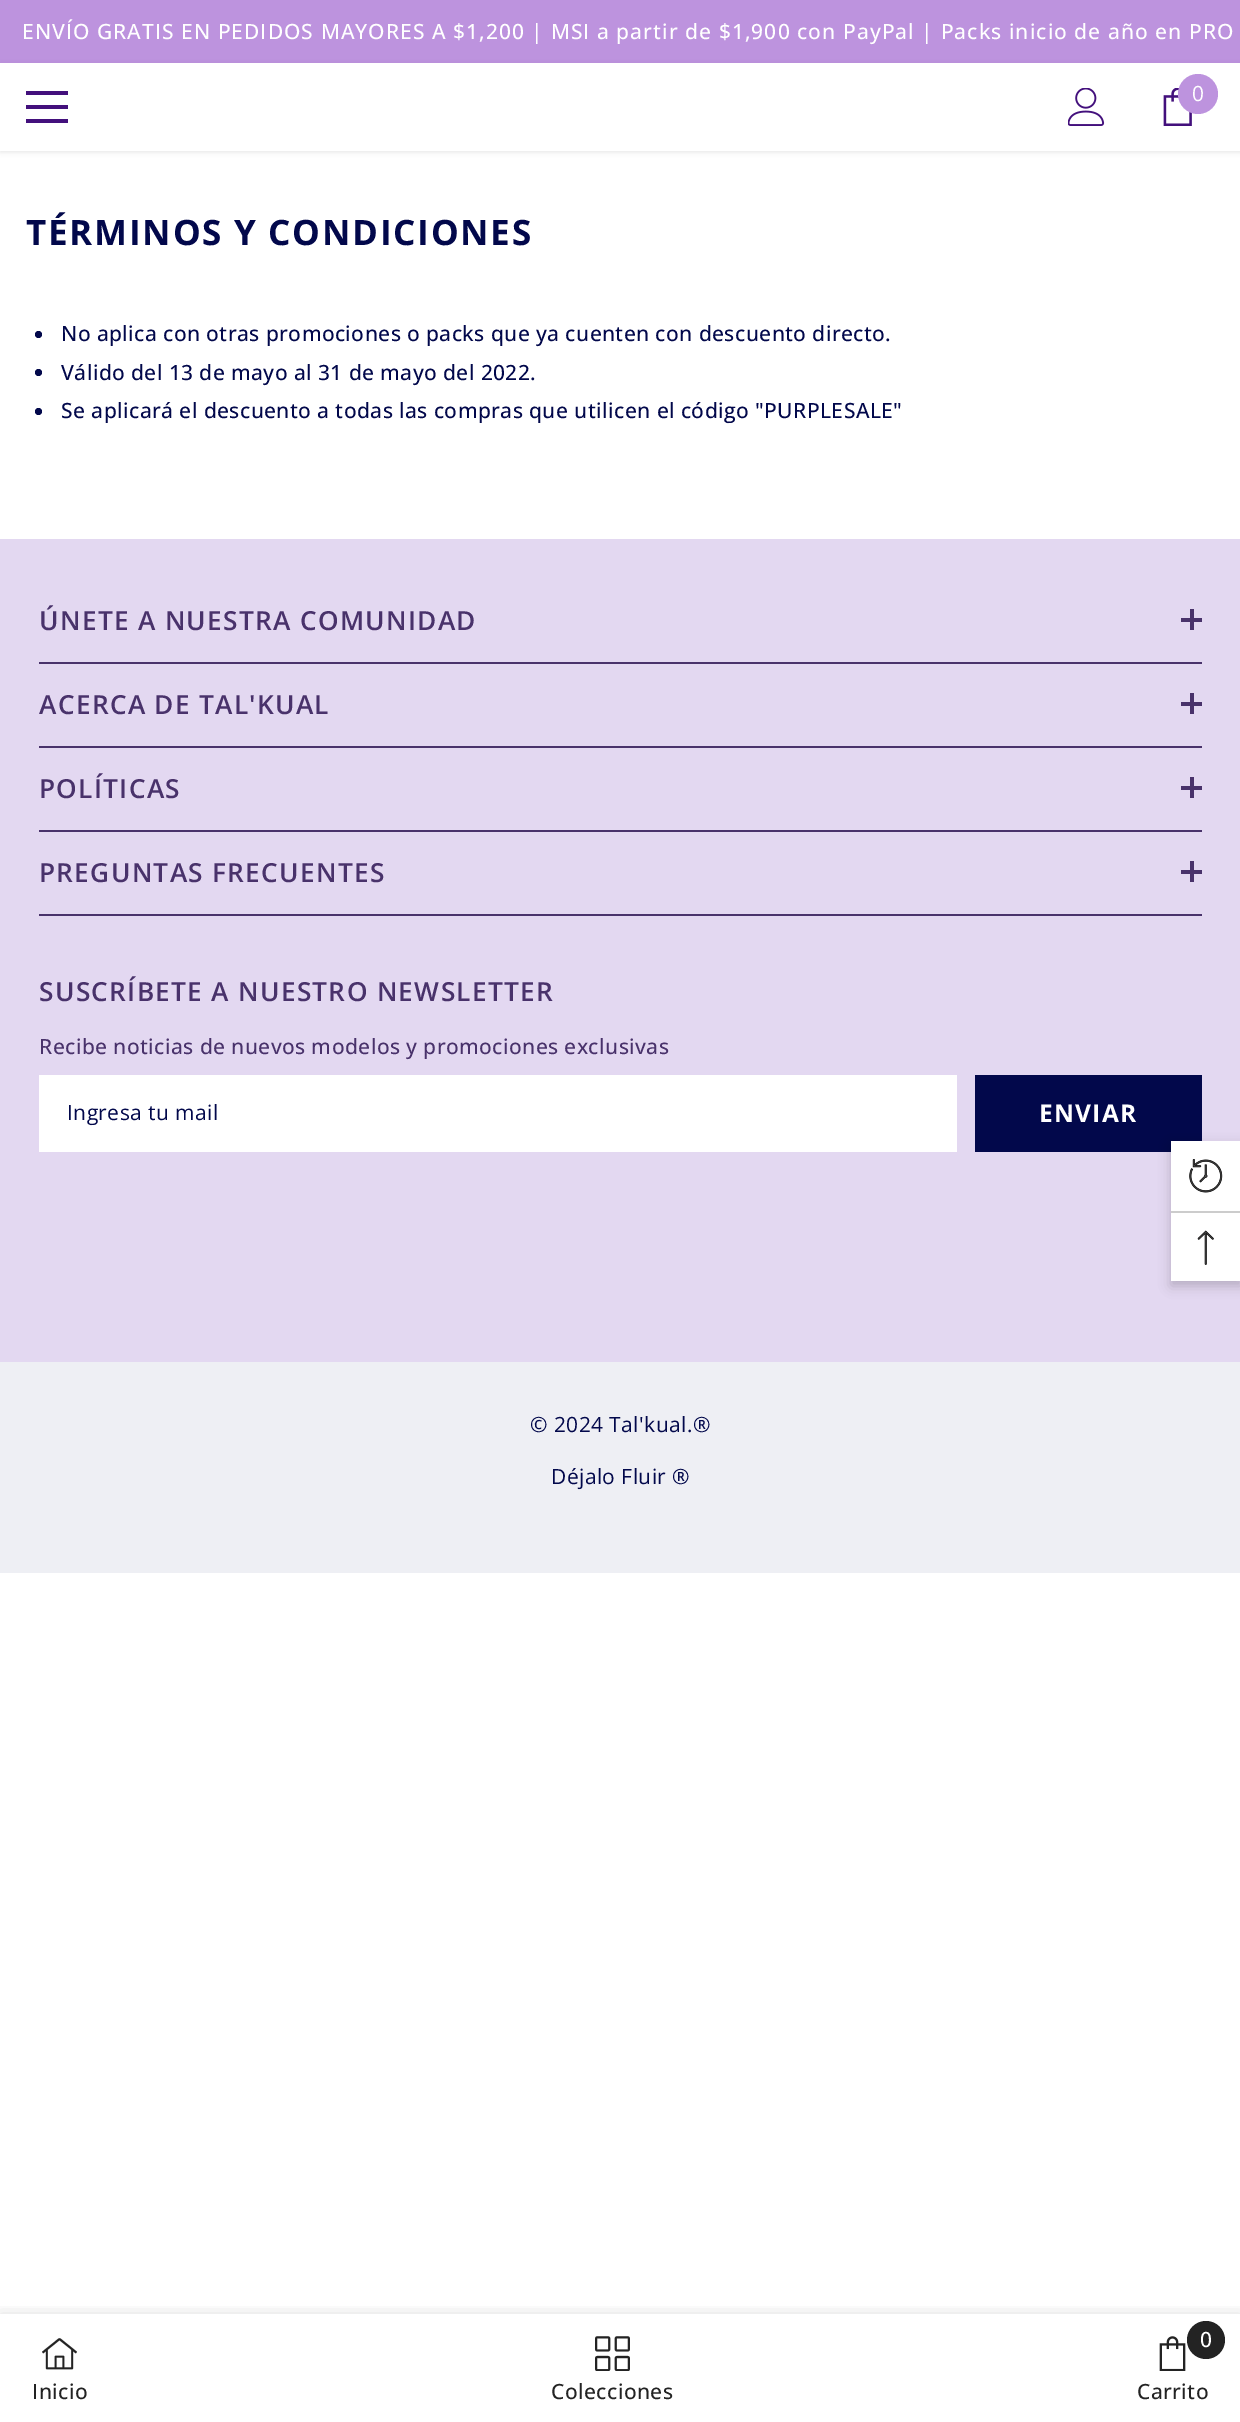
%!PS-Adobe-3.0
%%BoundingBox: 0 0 1240 2422
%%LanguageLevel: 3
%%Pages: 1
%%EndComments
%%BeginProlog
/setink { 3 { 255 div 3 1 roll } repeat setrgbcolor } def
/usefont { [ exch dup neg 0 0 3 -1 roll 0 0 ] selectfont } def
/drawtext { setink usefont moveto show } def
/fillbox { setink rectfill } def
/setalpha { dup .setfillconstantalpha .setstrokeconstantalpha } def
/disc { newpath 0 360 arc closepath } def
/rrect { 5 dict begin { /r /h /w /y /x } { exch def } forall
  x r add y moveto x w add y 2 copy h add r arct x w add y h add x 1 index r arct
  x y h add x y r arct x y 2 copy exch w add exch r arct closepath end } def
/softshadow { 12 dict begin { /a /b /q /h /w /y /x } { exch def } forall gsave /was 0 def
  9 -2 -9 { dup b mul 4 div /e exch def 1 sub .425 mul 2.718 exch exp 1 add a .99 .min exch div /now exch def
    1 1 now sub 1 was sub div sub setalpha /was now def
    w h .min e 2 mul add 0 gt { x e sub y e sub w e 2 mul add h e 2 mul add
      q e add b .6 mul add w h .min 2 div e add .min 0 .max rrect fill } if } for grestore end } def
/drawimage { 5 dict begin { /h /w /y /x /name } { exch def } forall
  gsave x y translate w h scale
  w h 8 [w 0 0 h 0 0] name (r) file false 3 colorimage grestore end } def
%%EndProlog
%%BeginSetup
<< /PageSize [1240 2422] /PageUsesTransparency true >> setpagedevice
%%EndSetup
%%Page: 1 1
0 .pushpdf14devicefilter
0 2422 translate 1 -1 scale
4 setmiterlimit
0 0 1240 2422 255 255 255 fillbox
0 0 1240 63 189 147 222 fillbox
/OpenSans-Medium 21 usefont
255 255 255 setink
22 39 moveto 1.05 0 (ENVÍO GRATIS EN PEDIDOS MAYORES A $1,200 | MSI a partir de $1,900 con PayPal | Packs inicio de año en PRO) ashow
0 0 0 setink
0 65 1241 87 0 2.5 0.1 softshadow
0 63 1240 88 255 255 255 fillbox
26 105 42 4 67 16 124 fillbox
26 91 42 4 67 16 124 fillbox
26 119 42 4 67 16 124 fillbox
(assets/img1.rgb) 1068 88 37 38 drawimage
(assets/img2.rgb) 1163 88 29 38 drawimage
189 147 222 setink
1198 94 20 disc fill
(0) 1192 101 /OpenSans-Regular 21 255 255 255 drawtext
/OpenSans-Bold 35 usefont
2 8 75 setink
26 245 moveto 1.75 0 (TÉRMINOS Y CONDICIONES) ashow
38.5 334.5 3.5 disc fill
/OpenSans-Medium 21 usefont
61 341 moveto 0.42 0 (No aplica con otras promociones o packs que ya cuenten con descuento directo.) ashow
38.5 372.5 3.5 disc fill
61 380 moveto 0.42 0 (Válido del 13 de mayo al 31 de mayo del 2022.) ashow
38.5 411.5 3.5 disc fill
61 418 moveto 0.42 0 (Se aplicará el descuento a todas las compras que utilicen el código "PURPLESALE") ashow
0 539 1240 823 227 216 241 fillbox
39 662 1163 2 73 50 107 fillbox
/OpenSans-SemiBold 26.25 usefont
39 630 moveto 1.3 0 (ÚNETE A NUESTRA COMUNIDAD) ashow
1190 609 4 21 73 50 107 fillbox
1181 618 21 4 73 50 107 fillbox
39 746 1163 2 73 50 107 fillbox
39 714 moveto 1.3 0 (ACERCA DE TAL'KUAL) ashow
1190 693 4 21 73 50 107 fillbox
1181 702 21 4 73 50 107 fillbox
39 830 1163 2 73 50 107 fillbox
39 798 moveto 1.3 0 (POLÍTICAS) ashow
1190 777 4 21 73 50 107 fillbox
1181 786 21 4 73 50 107 fillbox
39 914 1163 2 73 50 107 fillbox
39 882 moveto 1.3 0 (PREGUNTAS FRECUENTES) ashow
1190 861 4 21 73 50 107 fillbox
1181 870 21 4 73 50 107 fillbox
39 1001 moveto 1.3 0 (SUSCRÍBETE A NUESTRO NEWSLETTER) ashow
/OpenSans-Medium 21 usefont
39 1054 moveto 0.42 0 (Recibe noticias de nuevos modelos y promociones exclusivas) ashow
39 1075 918 77 255 255 255 fillbox
/OpenSans-Regular 21 usefont
2 8 75 setink
67 1120 moveto 0.42 0 (Ingresa tu mail) ashow
975 1075 227 77 2 8 75 fillbox
/OpenSans-Bold 24.5 usefont
255 255 255 setink
1039 1122 moveto 1.25 0 (ENVIAR) ashow
0 1362 1240 211 238 239 244 fillbox
/OpenSans-Regular 21 usefont
2 8 75 setink
530 1432 moveto 0.42 0 (© 2024 Tal'kual.®) ashow
551 1484 moveto 0.42 0 (Déjalo Fluir ®) ashow
gsave
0 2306 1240 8 rectclip
0 0 0 setink
0 2314 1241 108 0 8 0.12 softshadow
grestore
(assets/img3.rgb) 42 2338 35 32 drawimage
/OpenSans-Medium 21 usefont
35 35 35 setink
32 2399 moveto 0.42 0 (Inicio) ashow
(assets/img4.rgb) 595 2336 35 35 drawimage
551 2399 moveto 0.42 0 (Colecciones) ashow
(assets/img5.rgb) 1159 2336 27 35 drawimage
1206 2340 19 disc fill
(0) 1200 2347 /OpenSans-Medium 21 255 255 255 drawtext
35 35 35 setink
1137 2399 moveto 0.42 0 (Carrito) ashow
0 0 0 setink
1171 1146 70 140 0 6 0.2 softshadow
1171 1141 69 140 255 255 255 fillbox
(assets/img6.rgb) 1189 1159 34 34 drawimage
1171 1211 69 2 204 204 204 fillbox
(assets/img7.rgb) 1197 1230 17 35 drawimage
.poppdf14devicefilter showpage
%%EOF
